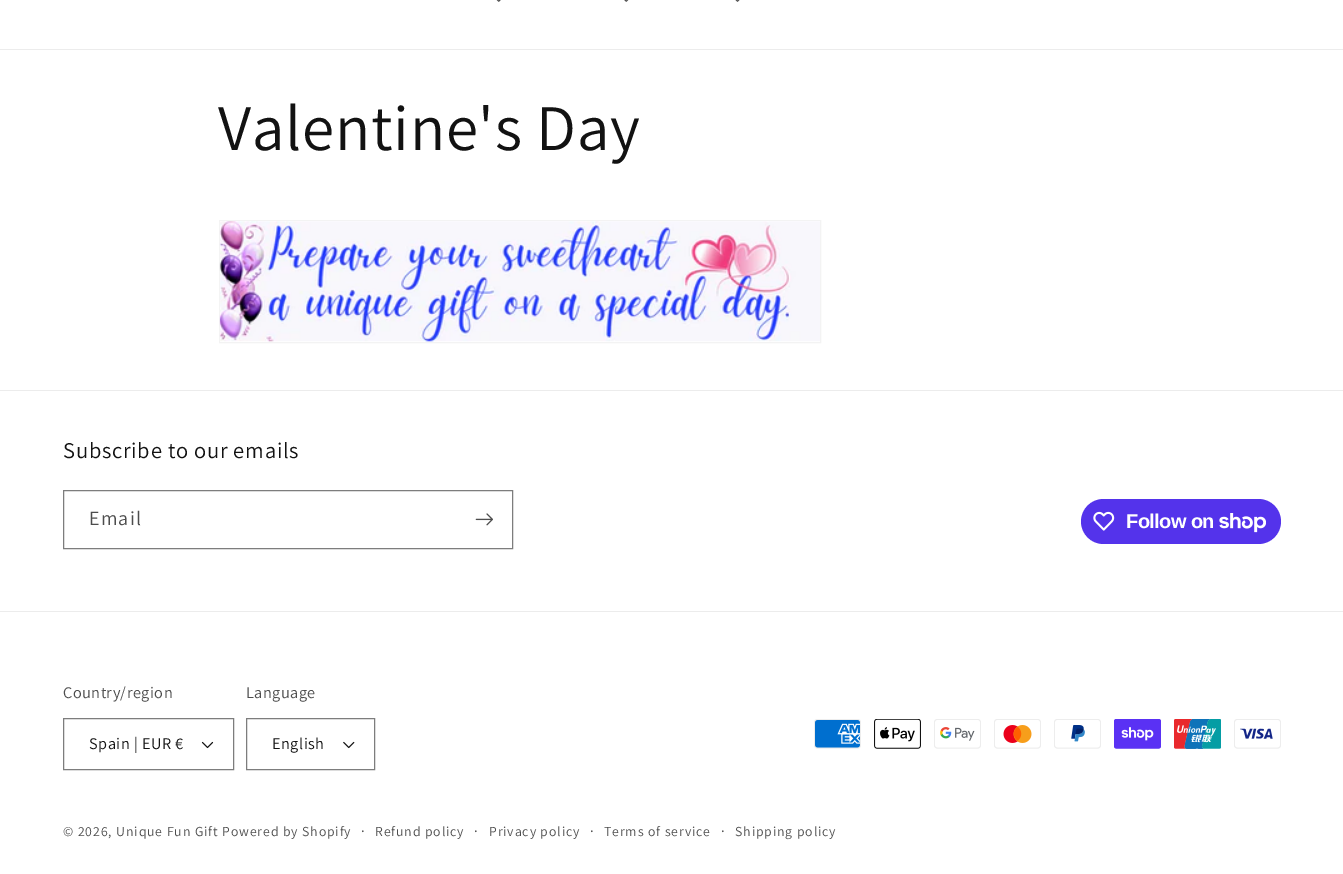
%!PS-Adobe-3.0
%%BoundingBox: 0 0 1343 874
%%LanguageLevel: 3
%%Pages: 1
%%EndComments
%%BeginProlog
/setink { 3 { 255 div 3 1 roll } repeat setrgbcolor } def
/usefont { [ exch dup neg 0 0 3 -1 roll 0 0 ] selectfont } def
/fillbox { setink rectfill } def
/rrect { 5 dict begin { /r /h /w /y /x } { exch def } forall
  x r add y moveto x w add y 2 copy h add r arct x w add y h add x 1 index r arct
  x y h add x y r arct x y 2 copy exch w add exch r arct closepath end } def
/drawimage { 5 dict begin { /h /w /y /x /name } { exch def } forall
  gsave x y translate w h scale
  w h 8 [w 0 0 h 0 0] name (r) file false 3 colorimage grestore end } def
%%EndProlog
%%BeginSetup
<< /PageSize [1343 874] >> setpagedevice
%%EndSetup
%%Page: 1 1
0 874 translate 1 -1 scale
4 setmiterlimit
0 0 1343 874 255 255 255 fillbox
0 49 1343 1 236 236 236 fillbox
(assets/img1.rgb) 496 0 5 2 drawimage
(assets/img2.rgb) 624 0 5 2 drawimage
(assets/img3.rgb) 735 0 5 2 drawimage
/Assistant-Regular 65 usefont
18 18 18 setink
218 150 moveto 0.75 0 (Valentine's Day) ashow
243 243 243 setink
219.5 220.5 601 122 rectstroke
(assets/img4.rgb) 219 221 601 121 drawimage
0 390 1343 1 236 236 236 fillbox
/Assistant-Regular 22.5 usefont
18 18 18 setink
63 458 moveto 0.75 0 (Subscribe to our emails) ashow
125 125 125 setink
63.5 490.5 449 58 rectstroke
/Assistant-Regular 20 usefont
77 77 77 setink
89 525 moveto 1.25 0 (Email) ashow
(assets/img5.rgb) 475 513 18 13 drawimage
84 51 235 setink
1081 499 200 45 22.5 rrect fill
(assets/img6.rgb) 1093 511 22 20 drawimage
/LiberationSans-Bold 20 usefont
255 255 255 setink
1126 528 moveto -0.6 0 (Follow on) ashow
(assets/img7.rgb) 1219 513 47 20 drawimage
0 611 1343 1 236 236 236 fillbox
/Assistant-Regular 16.25 usefont
77 77 77 setink
63 698 moveto 0.5 0 (Country/region) ashow
(assets/img8.rgb) 201 741 13 8 drawimage
125 125 125 setink
63.5 718.5 170 51 rectstroke
18 18 18 setink
89 749 moveto 0.5 0 (Spain | EUR €) ashow
77 77 77 setink
246 698 moveto 0.5 0 (Language) ashow
(assets/img9.rgb) 343 741 12 8 drawimage
125 125 125 setink
246.5 718.5 128 51 rectstroke
18 18 18 setink
272 749 moveto 0.5 0 (English) ashow
(assets/img10.rgb) 814 719 47 30 drawimage
(assets/img11.rgb) 874 719 47 30 drawimage
(assets/img12.rgb) 934 719 47 30 drawimage
(assets/img13.rgb) 994 719 47 30 drawimage
(assets/img14.rgb) 1054 719 47 30 drawimage
(assets/img15.rgb) 1114 719 47 30 drawimage
(assets/img16.rgb) 1174 719 47 30 drawimage
(assets/img17.rgb) 1234 719 47 30 drawimage
/Assistant-Regular 13.75 usefont
77 77 77 setink
63 836 moveto 0.9 0 (© 2026, Unique Fun Gift Powered by Shopify) ashow
/Assistant-Regular 15 usefont
361 836 moveto 0.9 0 (·) ashow
/Assistant-Regular 13.75 usefont
375 836 moveto 0.9 0 (Refund policy) ashow
/Assistant-Regular 15 usefont
474 836 moveto 0.9 0 (·) ashow
/Assistant-Regular 13.75 usefont
489 836 moveto 0.9 0 (Privacy policy) ashow
/Assistant-Regular 15 usefont
590 836 moveto 0.9 0 (·) ashow
/Assistant-Regular 13.75 usefont
604 836 moveto 0.9 0 (Terms of service) ashow
/Assistant-Regular 15 usefont
721 836 moveto 0.9 0 (·) ashow
/Assistant-Regular 13.75 usefont
735 836 moveto 0.9 0 (Shipping policy) ashow
showpage
%%EOF
